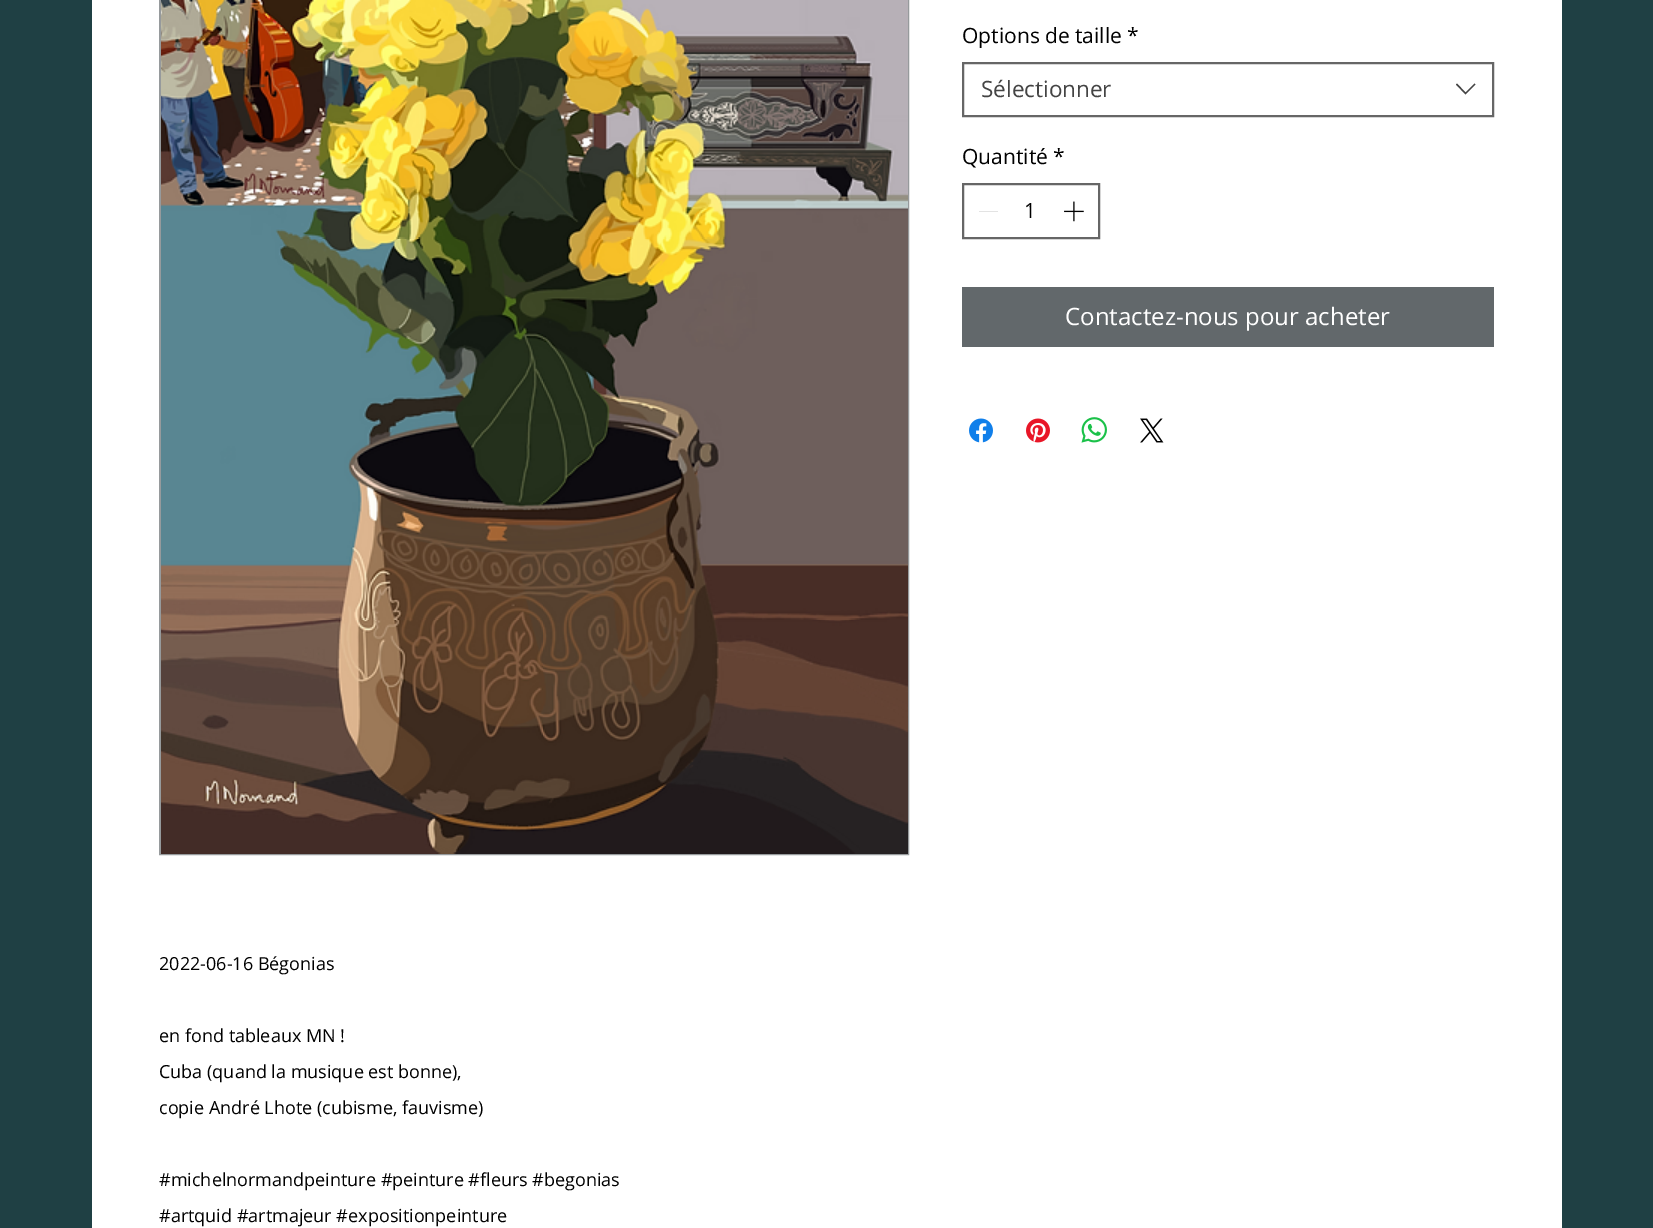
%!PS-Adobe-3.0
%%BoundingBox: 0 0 1653 1228
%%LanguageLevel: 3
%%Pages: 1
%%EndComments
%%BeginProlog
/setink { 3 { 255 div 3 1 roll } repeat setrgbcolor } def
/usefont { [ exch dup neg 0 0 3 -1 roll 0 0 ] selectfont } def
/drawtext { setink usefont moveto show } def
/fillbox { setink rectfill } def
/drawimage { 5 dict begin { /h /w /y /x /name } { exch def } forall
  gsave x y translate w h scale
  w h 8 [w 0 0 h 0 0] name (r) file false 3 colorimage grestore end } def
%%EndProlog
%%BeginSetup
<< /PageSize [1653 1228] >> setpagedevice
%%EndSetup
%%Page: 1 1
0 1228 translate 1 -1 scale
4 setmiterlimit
0 0 1653 1228 31 64 68 fillbox
92 0 1470 1228 255 255 255 fillbox
(Options de taille) 962 43 /OpenSans-Regular 21 0 0 0 drawtext
(*) 1127 43 /OpenSans-Regular 21 0 0 0 drawtext
102 102 102 setink
2 setlinewidth
963 63 530 53 rectstroke
(Sélectionner) 981 97 /OpenSans-Regular 22.5 68 68 68 drawtext
1474.5 83.5 moveto 1475.5 84.5 lineto 1465.5 94.5 lineto 1456 84.5 lineto 1457 83.5 lineto 1465.5 92.5 lineto closepath eofill
(Quantité) 962 164 /OpenSans-Regular 21 0 0 0 drawtext
(*) 1053 164 /OpenSans-Regular 21 0 0 0 drawtext
102 102 102 setink
963 184 136 54 rectstroke
979 211 19 1 227 227 227 fillbox
(1) 1024 218 /OpenSans-Regular 21 0 0 0 drawtext
(assets/img1.rgb) 1064 201 20 21 drawimage
962 287 532 60 98 104 107 fillbox
(Contactez-nous pour acheter) 1065 325 /OpenSans-Regular 24 255 255 255 drawtext
(assets/img2.rgb) 969 418 24 25 drawimage
(assets/img3.rgb) 1026 418 24 25 drawimage
(assets/img4.rgb) 1081 417 26 26 drawimage
(assets/img5.rgb) 1140 418 24 25 drawimage
150 154 156 setink
160 -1 748 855 rectstroke
(assets/img6.rgb) 161 0 747 854 drawimage
(2022-06-16 Bégonias) 159 970 /OpenSans-Regular 18 0 0 0 drawtext
(en fond tableaux MN !) 159 1042 /OpenSans-Regular 18 0 0 0 drawtext
(Cuba \(quand la musique est bonne\),) 159 1078 /OpenSans-Regular 18 0 0 0 drawtext
(copie André Lhote \(cubisme, fauvisme\)) 159 1114 /OpenSans-Regular 18 0 0 0 drawtext
(#michelnormandpeinture #peinture #fleurs #begonias) 159 1186 /OpenSans-Regular 18 0 0 0 drawtext
(#artquid #artmajeur #expositionpeinture) 159 1222 /OpenSans-Regular 18 0 0 0 drawtext
showpage
%%EOF
